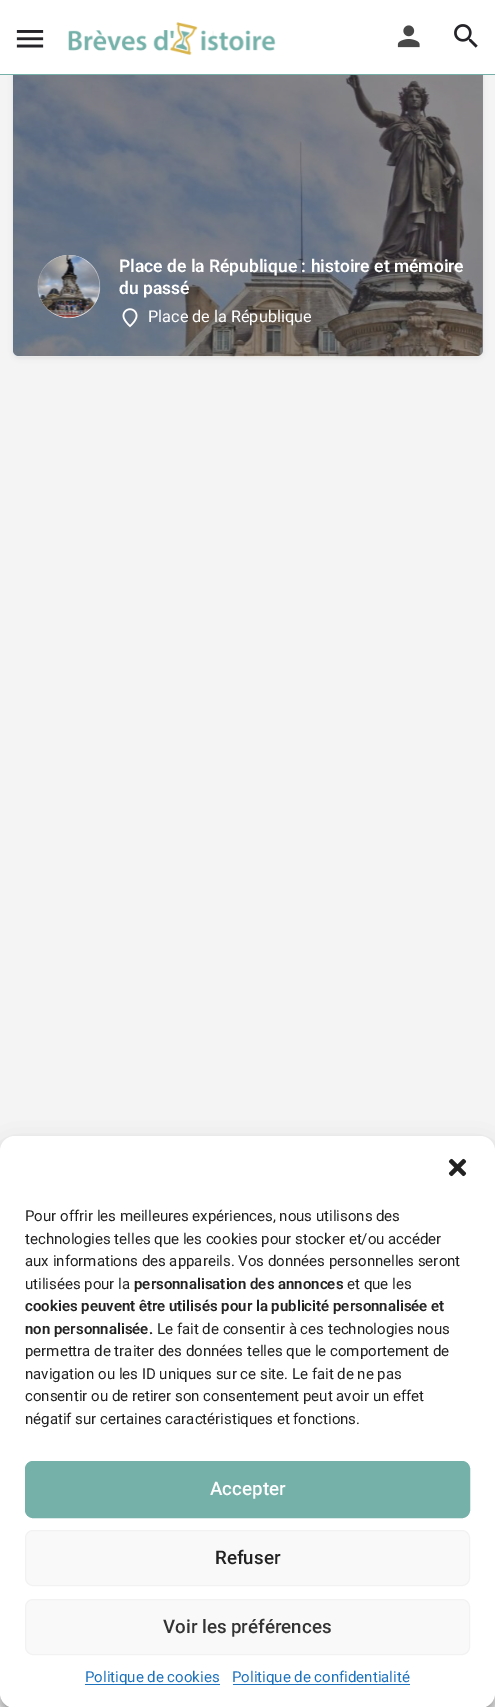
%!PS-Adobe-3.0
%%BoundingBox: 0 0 495 1707
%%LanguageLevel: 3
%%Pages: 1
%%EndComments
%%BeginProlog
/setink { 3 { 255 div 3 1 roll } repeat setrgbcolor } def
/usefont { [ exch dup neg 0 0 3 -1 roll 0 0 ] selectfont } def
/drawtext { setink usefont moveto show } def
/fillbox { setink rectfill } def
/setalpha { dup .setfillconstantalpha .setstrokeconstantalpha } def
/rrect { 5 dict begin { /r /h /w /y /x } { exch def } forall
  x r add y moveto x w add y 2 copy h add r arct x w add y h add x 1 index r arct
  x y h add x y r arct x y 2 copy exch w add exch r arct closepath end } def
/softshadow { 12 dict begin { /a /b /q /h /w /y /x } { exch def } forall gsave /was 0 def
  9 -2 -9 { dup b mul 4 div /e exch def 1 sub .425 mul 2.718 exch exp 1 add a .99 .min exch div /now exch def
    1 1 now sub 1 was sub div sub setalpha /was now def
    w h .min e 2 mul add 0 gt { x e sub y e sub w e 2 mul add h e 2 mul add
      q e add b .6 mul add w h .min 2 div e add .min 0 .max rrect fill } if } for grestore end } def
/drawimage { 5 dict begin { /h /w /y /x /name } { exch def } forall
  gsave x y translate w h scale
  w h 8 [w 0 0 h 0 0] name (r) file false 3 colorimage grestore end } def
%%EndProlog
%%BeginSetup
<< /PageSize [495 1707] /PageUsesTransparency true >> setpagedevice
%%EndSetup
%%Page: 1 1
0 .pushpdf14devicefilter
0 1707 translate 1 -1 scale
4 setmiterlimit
0 0 495 1707 244 244 244 fillbox
0 0 0 setink
13 70 470 288 6 2.5 0.07 softshadow
(assets/img5.rgb) 13 75 470 282 drawimage
0.5 setalpha
36 36 41 setink
13 69 470 287 6 rrect fill
1 setalpha
0 0 495 74 255 255 255 fillbox
0 74 495 1 117 177 169 fillbox
(assets/img1.rgb) 16 30 28 18 drawimage
(assets/img2.rgb) 68 22 208 33 drawimage
(assets/img3.rgb) 397 25 23 23 drawimage
(assets/img4.rgb) 454 24 24 24 drawimage
255 255 255 setink
38 255 62 63 31 rrect fill
(assets/img6.rgb) 37 255 64 63 drawimage
(Place de la République : histoire et mémoire) 119 272 /Roboto-SemiBold 17.5 255 255 255 drawtext
(du passé) 119 294 /Roboto-SemiBold 17.5 255 255 255 drawtext
(assets/img7.rgb) 122 308 16 20 drawimage
(Place de la République) 148 322 /Roboto-Regular 16.25 255 255 255 drawtext
0 0 0 setink
0 1144 495 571 15 4 0.23 softshadow
0 1149 495 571 15 12.5 0.19 softshadow
255 255 255 setink
0 1136 495 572 15 rrect fill
(assets/img8.rgb) 448 1158 19 19 drawimage
(Pour offrir les meilleures expériences, nous utilisons des) 25 1221 /Roboto-Regular 15 34 34 34 drawtext
(technologies telles que les cookies pour stocker et/ou accéder) 25 1244 /Roboto-Regular 15 34 34 34 drawtext
(aux informations des appareils. Vos données personnelles seront) 25 1266 /Roboto-Regular 15 34 34 34 drawtext
(utilisées pour la) 25 1289 /Roboto-Regular 15 34 34 34 drawtext
(personnalisation des annonces) 134 1289 /Roboto-SemiBold 15 34 34 34 drawtext
(et que les) 347 1289 /Roboto-Regular 15 34 34 34 drawtext
(cookies peuvent être utilisés pour la publicité personnalisée et) 25 1311 /Roboto-SemiBold 15 34 34 34 drawtext
(non personnalisée.) 25 1334 /Roboto-SemiBold 15 34 34 34 drawtext
(Le fait de consentir à ces technologies nous) 157 1334 /Roboto-Regular 15 34 34 34 drawtext
(permettra de traiter des données telles que le comportement de) 25 1356 /Roboto-Regular 15 34 34 34 drawtext
(navigation ou les ID uniques sur ce site. Le fait de ne pas) 25 1379 /Roboto-Regular 15 34 34 34 drawtext
(consentir ou de retirer son consentement peut avoir un effet) 25 1401 /Roboto-Regular 15 34 34 34 drawtext
(négatif sur certaines caractéristiques et fonctions.) 25 1424 /Roboto-Regular 15 34 34 34 drawtext
117 177 169 setink
25.5 1461.5 444 56 7.5 rrect gsave fill grestore
stroke
(Accepter) 210 1495 /Roboto-Medium 18.75 255 255 255 drawtext
249 249 249 setink
25.5 1530.5 444 55 7.5 rrect gsave fill grestore
242 242 242 setink
stroke
(Refuser) 215 1564 /Roboto-Medium 18.75 34 34 34 drawtext
249 249 249 setink
25.5 1599.5 444 55 7.5 rrect gsave fill grestore
242 242 242 setink
stroke
(Voir les préférences) 163 1633 /Roboto-Medium 18.75 51 51 51 drawtext
85 1684 135 1 30 115 190 fillbox
(Politique de cookies) 85 1682 /Roboto-Regular 15 30 115 190 drawtext
233 1684 177 1 30 115 190 fillbox
(Politique de confidentialité) 232 1682 /Roboto-Regular 15 30 115 190 drawtext
.poppdf14devicefilter showpage
%%EOF
